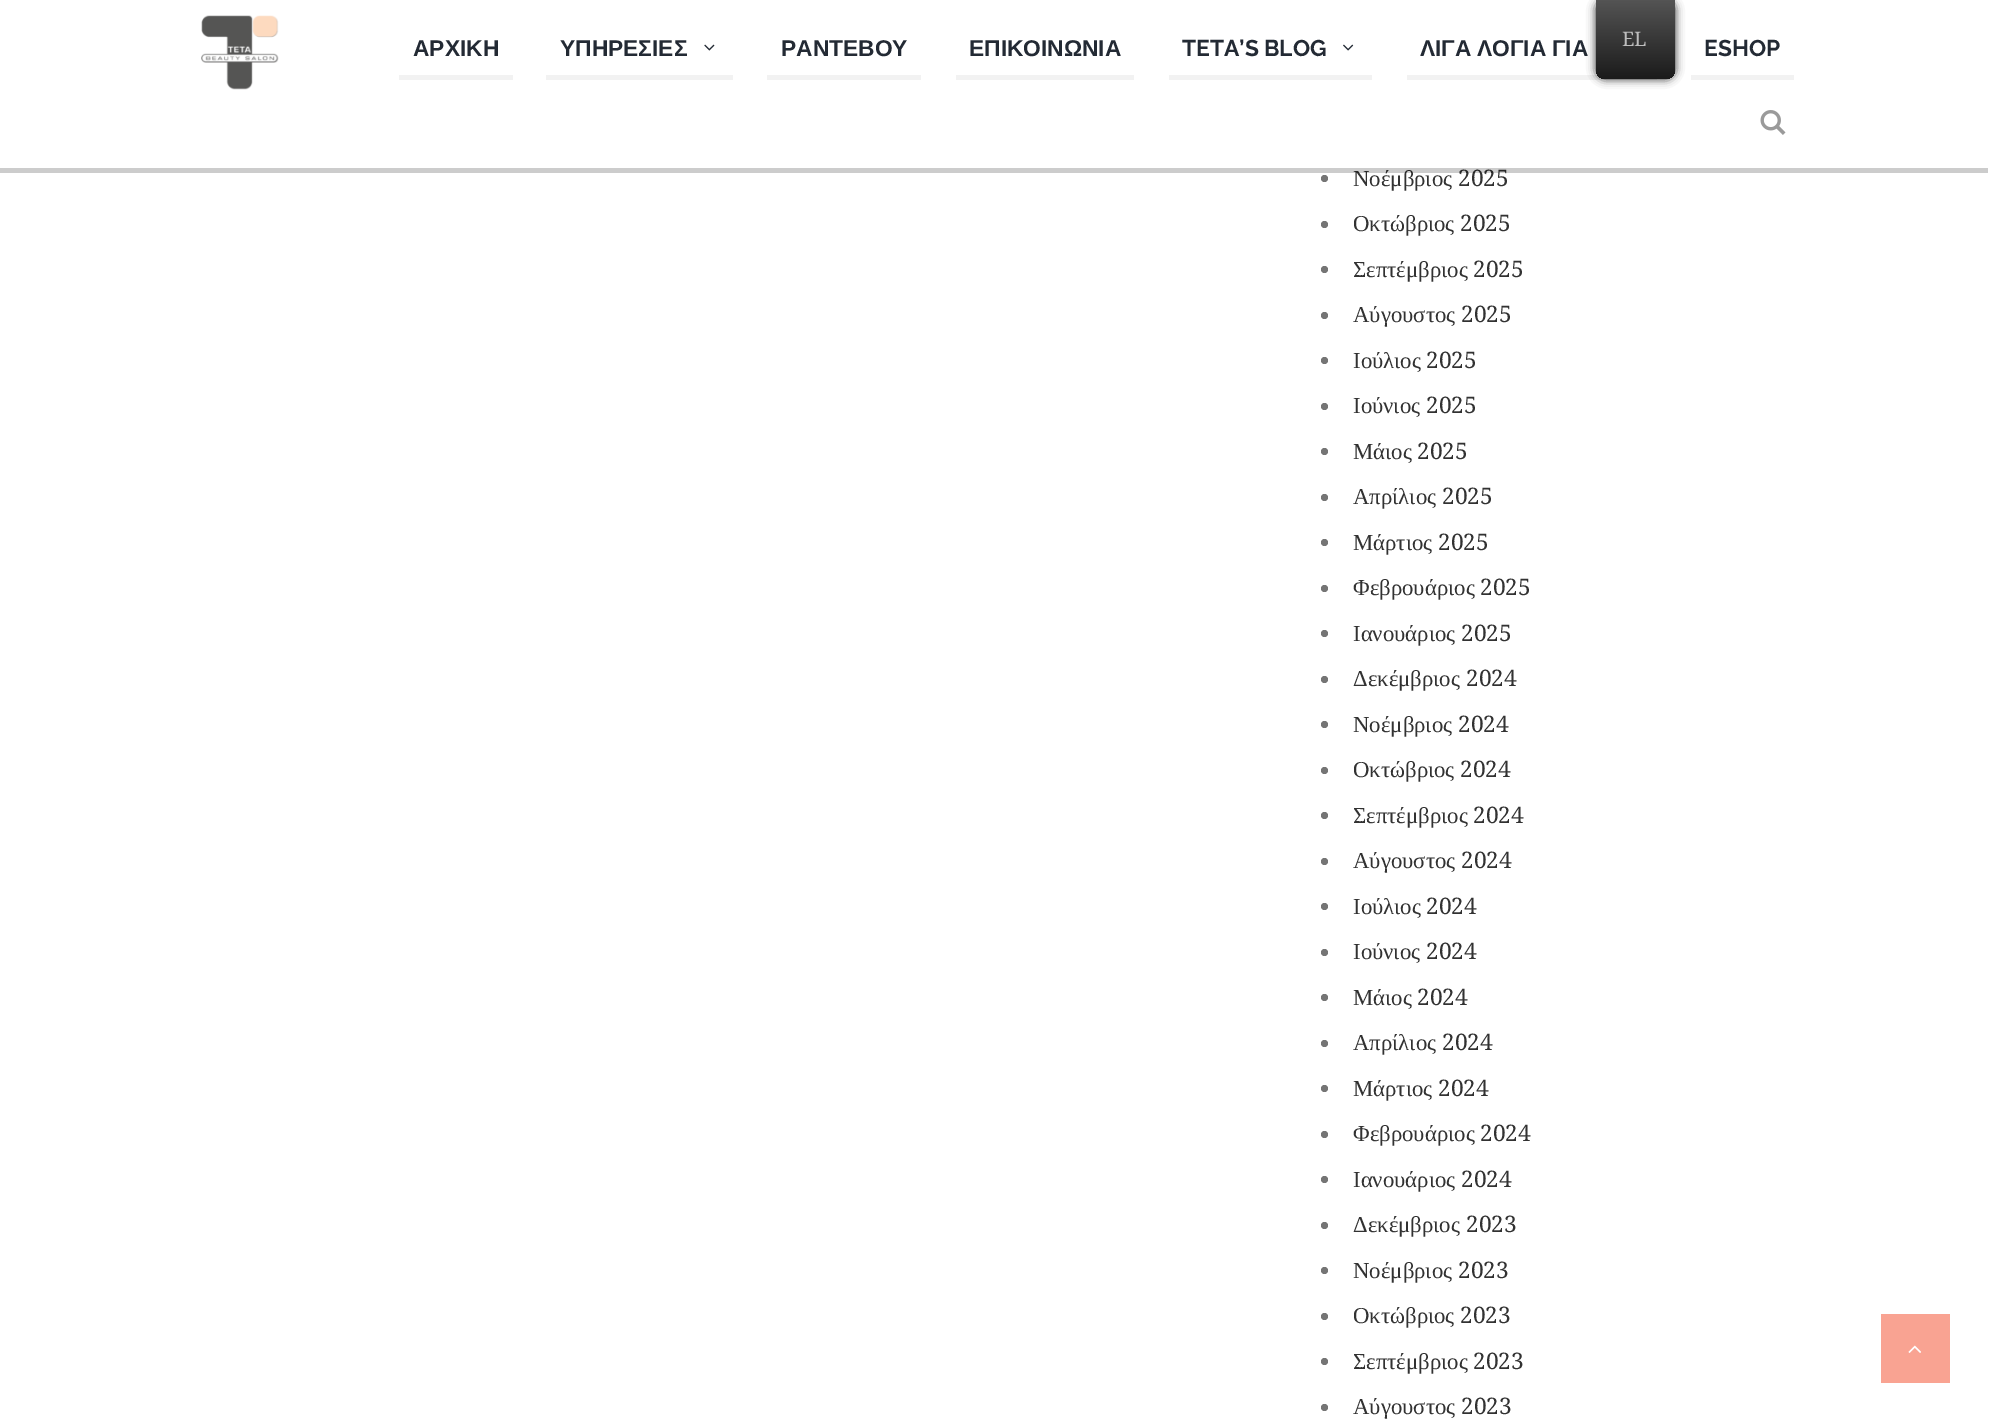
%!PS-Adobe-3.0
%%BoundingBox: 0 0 1995 1428
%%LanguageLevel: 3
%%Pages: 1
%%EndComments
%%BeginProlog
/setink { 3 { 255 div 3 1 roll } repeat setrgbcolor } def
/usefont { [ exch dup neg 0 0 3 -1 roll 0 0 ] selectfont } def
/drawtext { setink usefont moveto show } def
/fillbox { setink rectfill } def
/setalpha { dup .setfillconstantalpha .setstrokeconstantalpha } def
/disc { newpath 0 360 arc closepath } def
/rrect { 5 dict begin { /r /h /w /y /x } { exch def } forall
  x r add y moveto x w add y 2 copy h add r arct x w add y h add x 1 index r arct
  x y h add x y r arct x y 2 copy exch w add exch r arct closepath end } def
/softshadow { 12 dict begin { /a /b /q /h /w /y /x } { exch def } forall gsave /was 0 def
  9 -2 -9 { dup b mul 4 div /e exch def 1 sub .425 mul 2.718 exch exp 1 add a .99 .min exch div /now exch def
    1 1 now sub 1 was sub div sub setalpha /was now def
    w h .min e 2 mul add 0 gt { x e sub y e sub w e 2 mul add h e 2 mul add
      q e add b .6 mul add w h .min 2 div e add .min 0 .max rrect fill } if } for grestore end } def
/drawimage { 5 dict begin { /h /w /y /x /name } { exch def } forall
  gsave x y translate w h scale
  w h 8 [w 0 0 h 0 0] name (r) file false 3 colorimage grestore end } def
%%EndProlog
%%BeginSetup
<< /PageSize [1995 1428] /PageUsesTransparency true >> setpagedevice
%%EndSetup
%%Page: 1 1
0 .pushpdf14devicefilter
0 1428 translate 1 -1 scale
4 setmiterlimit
0 0 1995 1428 255 255 255 fillbox
1407 75 250 5 242 242 242 fillbox
33 33 33 setink
1596 0 79 79 9 4.5 1 softshadow
gsave 1596 0 moveto 1675 0 lineto 1675 70 lineto 1675 75 1671 79 1666 79 curveto 1605 79 lineto 1600 79 1596 75 1596 70 curveto closepath clip newpath
<< /ShadingType 2 /ColorSpace /DeviceRGB /Coords [1635 79 1635 0] /Extend [true true] /Function << /FunctionType 2 /Domain [0 1] /C0 [0.106 0.106 0.106] /C1 [0.329 0.329 0.329] /N 1 >> >> shfill grestore
(EL) 1622 46 /DroidSerif-Regular 20 189 189 189 drawtext
(Νοέμβριος) 1353 186 /LiberationSerif-Regular 22.75 50 50 50 drawtext
(2025) 1458 186 /DroidSerif-Regular 22.75 50 50 50 drawtext
0.2 setalpha
0 0 0 setink
-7 5 moveto -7 173 lineto 1988 173 lineto 1988 168 lineto 0 168 lineto 0 5 lineto closepath fill
1 setalpha
(assets/img1.rgb) 201 15 78 75 drawimage
399 75 114 5 242 242 242 fillbox
(ΑΡΧΙΚΗ) 413 56 /LiberationSans-Bold 22.75 35 42 52 drawtext
546 75 187 5 242 242 242 fillbox
(ΥΠΗΡΕΣΙΕΣ) 560 56 /LiberationSans-Bold 22.75 35 42 52 drawtext
(assets/img2.rgb) 704 44 11 7 drawimage
767 75 154 5 242 242 242 fillbox
(ΡΑΝΤΕΒΟΥ) 781 56 /LiberationSans-Bold 22.75 35 42 52 drawtext
956 75 178 5 242 242 242 fillbox
(ΕΠΙΚΟΙΝΩΝΙΑ) 969 56 /LiberationSans-Bold 22.75 35 42 52 drawtext
1169 75 203 5 242 242 242 fillbox
(TETA’S BLOG) 1182 56 /Raleway-Bold 22.75 35 42 52 drawtext
(assets/img3.rgb) 1343 44 11 7 drawimage
/LiberationSans-Bold 22.75 usefont
1420 56 moveto -1 0 32 (ΛΙΓΑ ΛΟΓΙΑ ΓΙΑ) widthshow
1691 75 103 5 242 242 242 fillbox
(ESHOP) 1704 56 /Raleway-Bold 22.75 35 42 52 drawtext
(assets/img4.rgb) 1760 110 26 25 drawimage
117 117 117 setink
1324.5 178.5 3.5 disc fill
1324.5 224.5 3.5 disc fill
(Οκτώβριος) 1353 231 /LiberationSerif-Regular 22.75 50 50 50 drawtext
(2025) 1460 231 /DroidSerif-Regular 22.75 50 50 50 drawtext
117 117 117 setink
1324.5 269.5 3.5 disc fill
(Σεπτέμβριος) 1353 277 /LiberationSerif-Regular 22.75 50 50 50 drawtext
(2025) 1473 277 /DroidSerif-Regular 22.75 50 50 50 drawtext
117 117 117 setink
1324.5 315.5 3.5 disc fill
(Αύγουστος) 1353 322 /LiberationSerif-Regular 22.75 50 50 50 drawtext
(2025) 1461 322 /DroidSerif-Regular 22.75 50 50 50 drawtext
117 117 117 setink
1324.5 360.5 3.5 disc fill
(Ιούλιος) 1353 368 /LiberationSerif-Regular 22.75 50 50 50 drawtext
(2025) 1426 368 /DroidSerif-Regular 22.75 50 50 50 drawtext
117 117 117 setink
1324.5 406.5 3.5 disc fill
(Ιούνιος) 1353 413 /LiberationSerif-Regular 22.75 50 50 50 drawtext
(2025) 1426 413 /DroidSerif-Regular 22.75 50 50 50 drawtext
117 117 117 setink
1324.5 451.5 3.5 disc fill
(Μάιος) 1353 459 /LiberationSerif-Regular 22.75 50 50 50 drawtext
(2025) 1417 459 /DroidSerif-Regular 22.75 50 50 50 drawtext
117 117 117 setink
1324.5 497.5 3.5 disc fill
(Απρίλιος) 1353 504 /LiberationSerif-Regular 22.75 50 50 50 drawtext
(2025) 1442 504 /DroidSerif-Regular 22.75 50 50 50 drawtext
117 117 117 setink
1324.5 542.5 3.5 disc fill
(Μάρτιος) 1353 550 /LiberationSerif-Regular 22.75 50 50 50 drawtext
(2025) 1438 550 /DroidSerif-Regular 22.75 50 50 50 drawtext
117 117 117 setink
1324.5 588.5 3.5 disc fill
(Φεβρουάριος) 1353 595 /LiberationSerif-Regular 22.75 50 50 50 drawtext
(2025) 1480 595 /DroidSerif-Regular 22.75 50 50 50 drawtext
117 117 117 setink
1324.5 633.5 3.5 disc fill
(Ιανουάριος) 1353 641 /LiberationSerif-Regular 22.75 50 50 50 drawtext
(2025) 1461 641 /DroidSerif-Regular 22.75 50 50 50 drawtext
117 117 117 setink
1324.5 679.5 3.5 disc fill
(Δεκέμβριος) 1353 686 /LiberationSerif-Regular 22.75 50 50 50 drawtext
(2024) 1466 686 /DroidSerif-Regular 22.75 50 50 50 drawtext
117 117 117 setink
1324.5 724.5 3.5 disc fill
(Νοέμβριος) 1353 732 /LiberationSerif-Regular 22.75 50 50 50 drawtext
(2024) 1458 732 /DroidSerif-Regular 22.75 50 50 50 drawtext
117 117 117 setink
1324.5 770.5 3.5 disc fill
(Οκτώβριος) 1353 777 /LiberationSerif-Regular 22.75 50 50 50 drawtext
(2024) 1460 777 /DroidSerif-Regular 22.75 50 50 50 drawtext
117 117 117 setink
1324.5 815.5 3.5 disc fill
(Σεπτέμβριος) 1353 823 /LiberationSerif-Regular 22.75 50 50 50 drawtext
(2024) 1473 823 /DroidSerif-Regular 22.75 50 50 50 drawtext
117 117 117 setink
1324.5 861.5 3.5 disc fill
(Αύγουστος) 1353 868 /LiberationSerif-Regular 22.75 50 50 50 drawtext
(2024) 1461 868 /DroidSerif-Regular 22.75 50 50 50 drawtext
117 117 117 setink
1324.5 906.5 3.5 disc fill
(Ιούλιος) 1353 914 /LiberationSerif-Regular 22.75 50 50 50 drawtext
(2024) 1426 914 /DroidSerif-Regular 22.75 50 50 50 drawtext
117 117 117 setink
1324.5 952.5 3.5 disc fill
(Ιούνιος) 1353 959 /LiberationSerif-Regular 22.75 50 50 50 drawtext
(2024) 1426 959 /DroidSerif-Regular 22.75 50 50 50 drawtext
117 117 117 setink
1324.5 997.5 3.5 disc fill
(Μάιος) 1353 1005 /LiberationSerif-Regular 22.75 50 50 50 drawtext
(2024) 1417 1005 /DroidSerif-Regular 22.75 50 50 50 drawtext
117 117 117 setink
1324.5 1043.5 3.5 disc fill
(Απρίλιος) 1353 1050 /LiberationSerif-Regular 22.75 50 50 50 drawtext
(2024) 1442 1050 /DroidSerif-Regular 22.75 50 50 50 drawtext
117 117 117 setink
1324.5 1088.5 3.5 disc fill
(Μάρτιος) 1353 1096 /LiberationSerif-Regular 22.75 50 50 50 drawtext
(2024) 1438 1096 /DroidSerif-Regular 22.75 50 50 50 drawtext
117 117 117 setink
1324.5 1134.5 3.5 disc fill
(Φεβρουάριος) 1353 1141 /LiberationSerif-Regular 22.75 50 50 50 drawtext
(2024) 1480 1141 /DroidSerif-Regular 22.75 50 50 50 drawtext
117 117 117 setink
1324.5 1179.5 3.5 disc fill
(Ιανουάριος) 1353 1187 /LiberationSerif-Regular 22.75 50 50 50 drawtext
(2024) 1461 1187 /DroidSerif-Regular 22.75 50 50 50 drawtext
117 117 117 setink
1324.5 1225.5 3.5 disc fill
(Δεκέμβριος) 1353 1232 /LiberationSerif-Regular 22.75 50 50 50 drawtext
(2023) 1466 1232 /DroidSerif-Regular 22.75 50 50 50 drawtext
117 117 117 setink
1324.5 1270.5 3.5 disc fill
(Νοέμβριος) 1353 1278 /LiberationSerif-Regular 22.75 50 50 50 drawtext
(2023) 1458 1278 /DroidSerif-Regular 22.75 50 50 50 drawtext
117 117 117 setink
1324.5 1316.5 3.5 disc fill
(Οκτώβριος) 1353 1323 /LiberationSerif-Regular 22.75 50 50 50 drawtext
(2023) 1460 1323 /DroidSerif-Regular 22.75 50 50 50 drawtext
117 117 117 setink
1324.5 1361.5 3.5 disc fill
(Σεπτέμβριος) 1353 1369 /LiberationSerif-Regular 22.75 50 50 50 drawtext
(2023) 1473 1369 /DroidSerif-Regular 22.75 50 50 50 drawtext
117 117 117 setink
1324.5 1407.5 3.5 disc fill
(Αύγουστος) 1353 1414 /LiberationSerif-Regular 22.75 50 50 50 drawtext
(2023) 1461 1414 /DroidSerif-Regular 22.75 50 50 50 drawtext
1881 1314 69 69 249 163 146 fillbox
(assets/img5.rgb) 1908 1345 13 8 drawimage
.poppdf14devicefilter showpage
%%EOF
